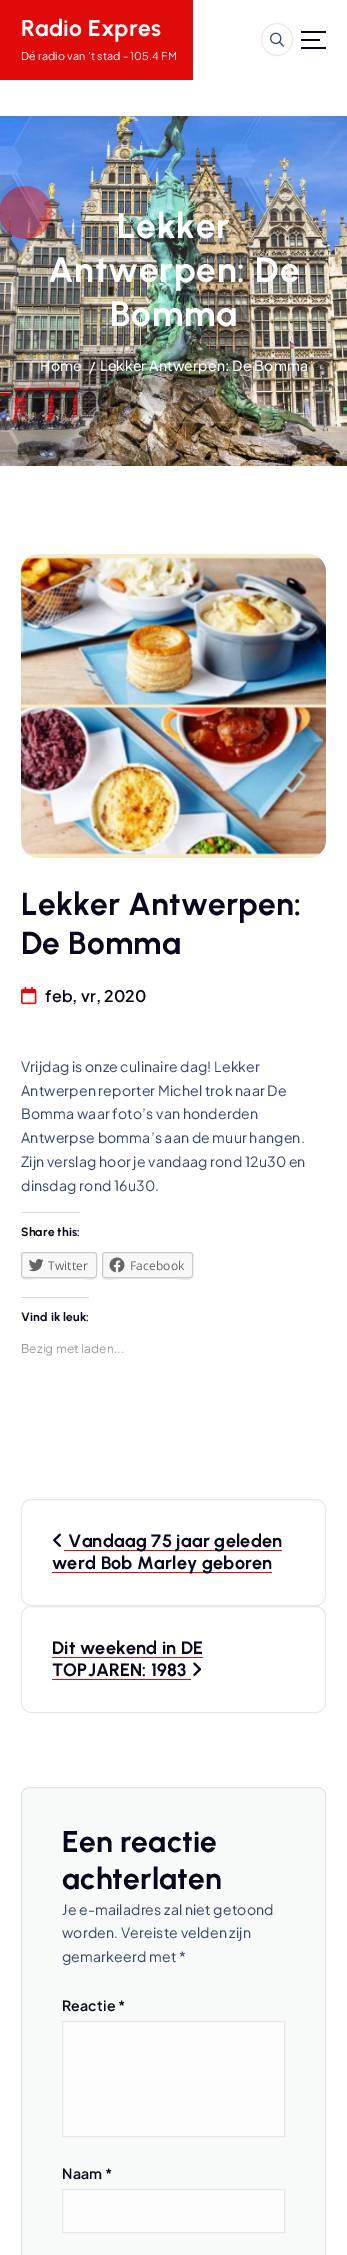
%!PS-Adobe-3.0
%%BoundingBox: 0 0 347 2255
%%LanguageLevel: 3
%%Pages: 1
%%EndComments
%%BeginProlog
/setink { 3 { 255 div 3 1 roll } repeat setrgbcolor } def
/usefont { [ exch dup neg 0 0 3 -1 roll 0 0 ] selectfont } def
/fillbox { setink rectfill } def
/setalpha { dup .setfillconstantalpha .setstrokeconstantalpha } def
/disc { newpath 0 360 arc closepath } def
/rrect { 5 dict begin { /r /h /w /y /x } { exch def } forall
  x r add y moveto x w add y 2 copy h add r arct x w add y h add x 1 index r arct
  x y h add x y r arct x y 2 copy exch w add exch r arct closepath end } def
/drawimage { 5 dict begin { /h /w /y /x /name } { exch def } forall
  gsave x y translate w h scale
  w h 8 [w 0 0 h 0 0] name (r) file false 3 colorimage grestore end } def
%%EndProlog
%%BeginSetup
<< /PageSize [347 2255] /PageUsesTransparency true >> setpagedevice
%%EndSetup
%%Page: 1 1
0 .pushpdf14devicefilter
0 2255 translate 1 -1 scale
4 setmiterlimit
0 0 347 2255 255 255 255 fillbox
0 0 193 80 223 10 10 fillbox
/Urbanist-Bold 23 usefont
255 255 255 setink
21 36 moveto 0.15 0 (Radio Expres) ashow
/PlusJakartaSans-Regular 10.8 usefont
21 60 moveto 0.15 0 (Dé radio van ’t stad - 105.4 FM) ashow
(assets/img1.rgb) 270 32 14 15 drawimage
232 232 232 setink
261.5 23.5 31 32 15.5 rrect stroke
301 31 25 2 9 7 29 fillbox
301 39 19 2 9 7 29 fillbox
301 47 25 2 9 7 29 fillbox
(assets/img2.rgb) 0 116 347 350 drawimage
0.5 setalpha
223 10 10 setink
25.5 212.5 26.5 disc fill
1 setalpha
(assets/img3.rgb) 0 116 347 350 drawimage
/Urbanist-Bold 35.25 usefont
255 255 255 setink
117 238 moveto 0.75 0 (Lekker) ashow
48 282 moveto 0.75 0 (Antwerpen: De) ashow
110 326 moveto 0.75 0 (Bomma) ashow
/PlusJakartaSans-Medium 14.1 usefont
40 371 moveto 0.15 0 (Home) ashow
89 372 moveto 0.15 0 (/) ashow
100 371 moveto 0.15 0 (Lekker Antwerpen: De Bomma) ashow
(assets/img4.rgb) 21 554 305 304 drawimage
/Urbanist-Bold 31.75 usefont
9 7 29 setink
21 915 moveto 0.15 0 (Lekker Antwerpen:) ashow
21 954 moveto 0.15 0 (De Bomma) ashow
(assets/img5.rgb) 21 986 16 19 drawimage
/PlusJakartaSans-SemiBold 16 usefont
45 1002 moveto 0.15 0 (feb, vr, 2020) ashow
/PlusJakartaSans-Regular 14.1 usefont
51 71 112 setink
21 1072 moveto 0.15 0 (Vrijdag is onze culinaire dag! Lekker) ashow
21 1096 moveto 0.15 0 (Antwerpen reporter Michel trok naar De) ashow
21 1119 moveto 0.15 0 (Bomma waar foto’s van honderden) ashow
21 1143 moveto 0.15 0 (Antwerpse bomma’s aan de muur hangen.) ashow
21 1167 moveto 0.15 0 (Zijn verslag hoor je vandaag rond 12u30 en) ashow
21 1191 moveto 0.15 0 (dinsdag rond 16u30.) ashow
21 1212 59 1 220 220 222 fillbox
/Urbanist-Bold 12 usefont
9 7 29 setink
21 1236 moveto 0.15 0 (Share this:) ashow
235 235 235 setink
21 1275 moveto 21 1282 32 1279 36 1279 curveto 82 1279 lineto 86 1279 97 1282 97 1275 curveto 97 1277 96 1278 94 1278 curveto 24 1278 lineto 22 1278 21 1277 21 1275 curveto closepath fill
248 248 248 setink
21.5 1252.5 75 25 2.5 rrect gsave fill grestore
204 204 204 setink
stroke
(assets/img6.rgb) 28 1259 16 13 drawimage
/OpenSans-Regular 12 usefont
101 101 101 setink
48 1270 moveto 0.15 0 (Twitter) ashow
235 235 235 setink
102 1275 moveto 102 1283 116 1279 119 1279 curveto 176 1279 lineto 179 1279 193 1283 193 1275 curveto 193 1277 192 1278 190 1278 curveto 105 1278 lineto 103 1278 102 1277 102 1275 curveto closepath fill
248 248 248 setink
102.5 1252.5 90 25 2.5 rrect gsave fill grestore
204 204 204 setink
stroke
(assets/img7.rgb) 109 1257 16 16 drawimage
101 101 101 setink
130 1270 moveto 0.15 0 (Facebook) ashow
21 1297 68 1 220 220 222 fillbox
/Urbanist-Bold 12 usefont
9 7 29 setink
21 1321 moveto 0.15 0 (Vind ik leuk:) ashow
/PlusJakartaSans-Regular 12 usefont
153 153 153 setink
21 1353 moveto 0.15 0 (Bezig met laden...) ashow
232 232 232 setink
21.5 1499.5 304 106 9.5 rrect stroke
(assets/img8.rgb) 53 1533 8 14 drawimage
64 1550 218 1 223 10 10 fillbox
/Urbanist-Bold 18 usefont
9 7 29 setink
68 1547 moveto 0.15 0 (Vandaag 75 jaar geleden) ashow
52 1572 220 1 223 10 10 fillbox
9 7 29 setink
52 1569 moveto 0.15 0 (werd Bob Marley geboren) ashow
232 232 232 setink
21.5 1606.5 304 106 9.5 rrect stroke
9 7 29 setink
52 1654 moveto 0.15 0 (Dit weekend in DE) ashow
52 1657 151 1 223 10 10 fillbox
9 7 29 setink
52 1676 moveto 0.15 0 (TOPJAREN: 1983) ashow
52 1679 139 1 223 10 10 fillbox
(assets/img9.rgb) 193 1662 9 14 drawimage
248 249 249 setink
21 1787 305 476 8 rrect fill
0.35 setalpha
189 189 189 setink
21.5 1787.5 304 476 7.5 rrect stroke
/Urbanist-Bold 30 usefont
1 setalpha
9 7 29 setink
62 1852 moveto 0.15 0 (Een reactie) ashow
62 1889 moveto 0.15 0 (achterlaten) ashow
/PlusJakartaSans-Regular 14.1 usefont
51 71 112 setink
62 1915 moveto 0.15 0 (Je e-mailadres zal niet getoond) ashow
62 1938 moveto 0.15 0 (worden. Vereiste velden zijn) ashow
62 1962 moveto 0.15 0 (gemarkeerd met *) ashow
/PlusJakartaSans-SemiBold 14.1 usefont
9 7 29 setink
62 2011 moveto 0.15 0 (Reactie *) ashow
253 253 253 setink
62.5 2021.5 moveto 284.5 2021.5 lineto 284.5 2136.5 lineto 62.5 2136.5 lineto closepath gsave fill grestore
231 231 231 setink
stroke
9 7 29 setink
62 2179 moveto 0.15 0 (Naam *) ashow
253 253 253 setink
62.5 2189.5 moveto 284.5 2189.5 lineto 284.5 2232.5 lineto 62.5 2232.5 lineto closepath gsave fill grestore
231 231 231 setink
stroke
.poppdf14devicefilter showpage
%%EOF
